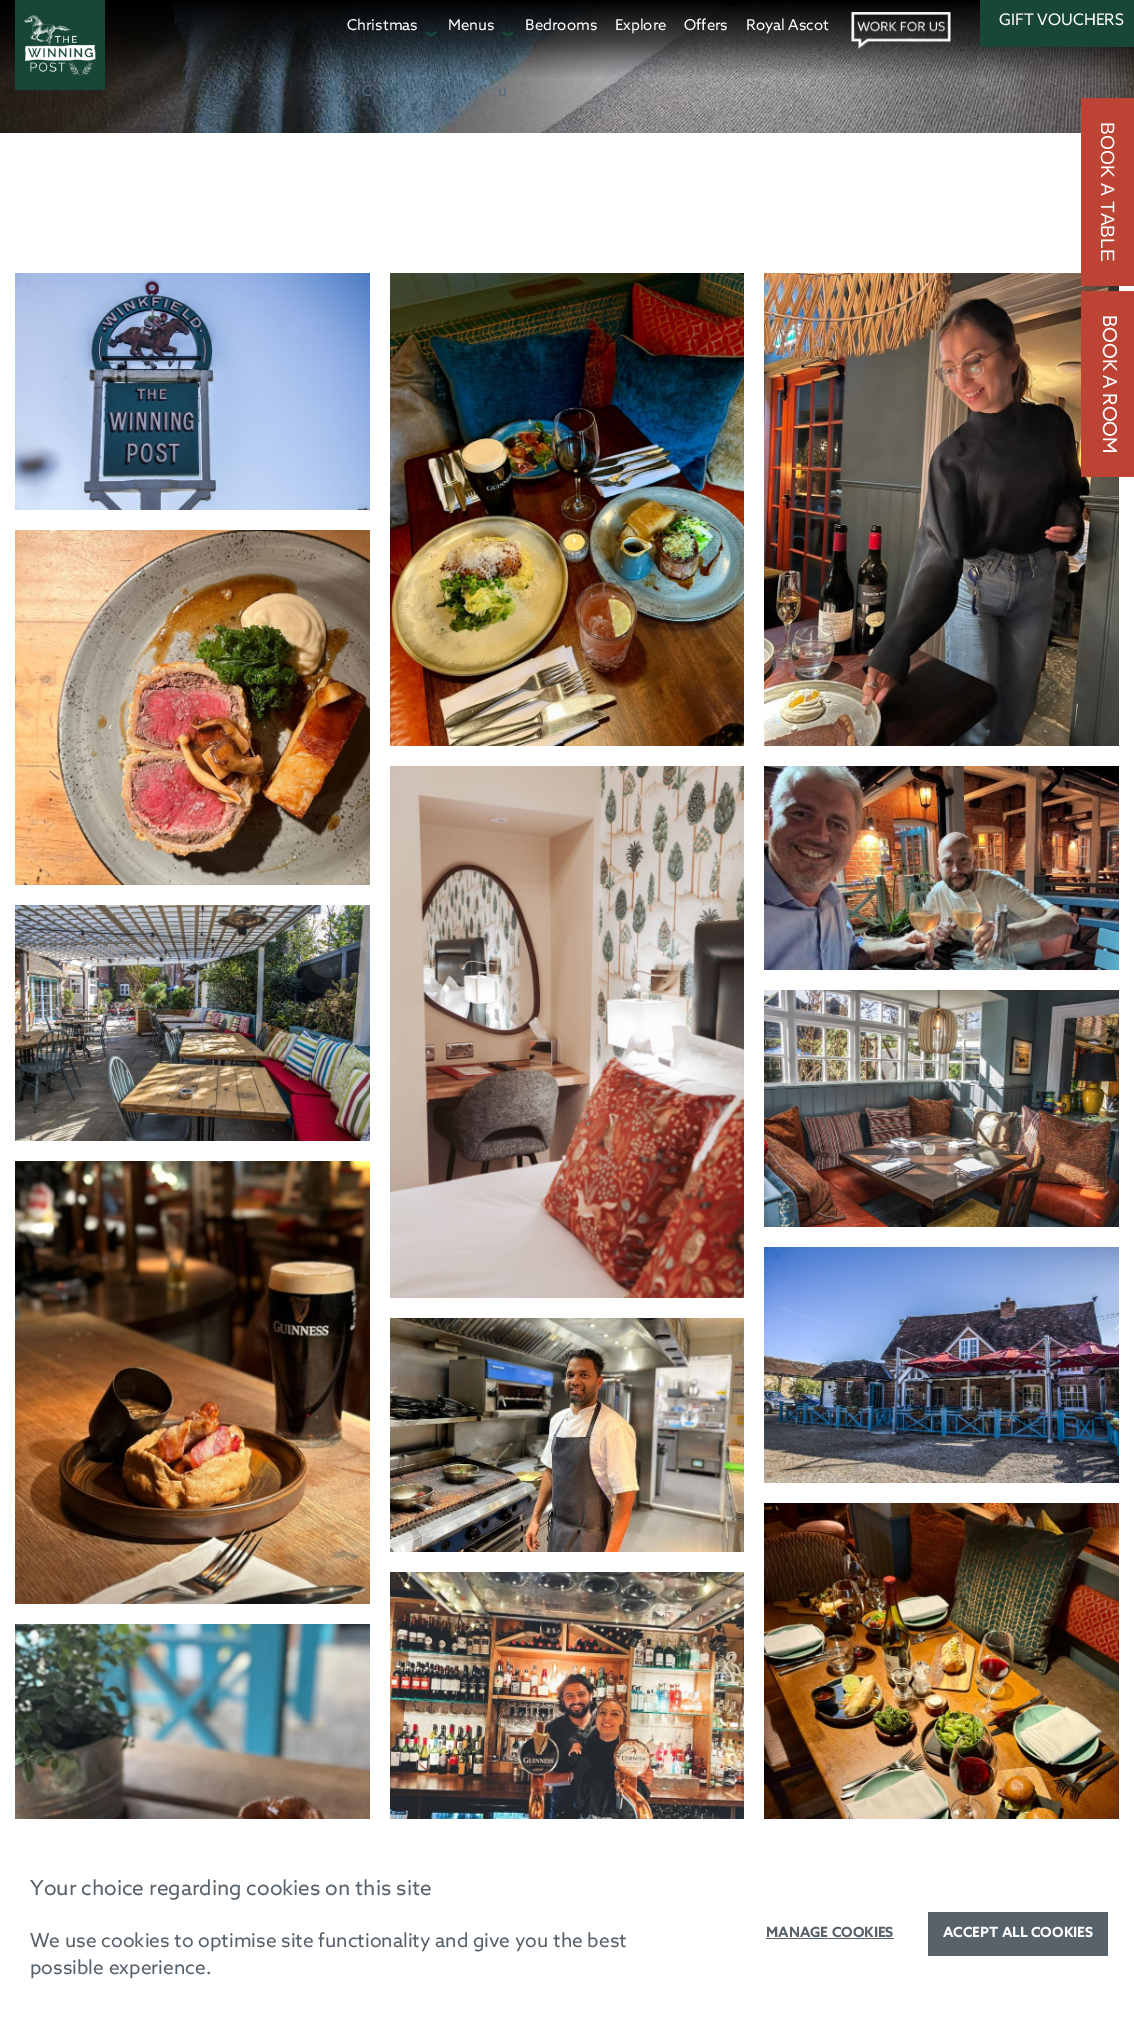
%!PS-Adobe-3.0
%%BoundingBox: 0 0 1134 2044
%%LanguageLevel: 3
%%Pages: 1
%%EndComments
%%BeginProlog
/setink { 3 { 255 div 3 1 roll } repeat setrgbcolor } def
/usefont { [ exch dup neg 0 0 3 -1 roll 0 0 ] selectfont } def
/drawtext { setink usefont moveto show } def
/fillbox { setink rectfill } def
/drawimage { 5 dict begin { /h /w /y /x /name } { exch def } forall
  gsave x y translate w h scale
  w h 8 [w 0 0 h 0 0] name (r) file false 3 colorimage grestore end } def
%%EndProlog
%%BeginSetup
<< /PageSize [1134 2044] >> setpagedevice
%%EndSetup
%%Page: 1 1
0 2044 translate 1 -1 scale
4 setmiterlimit
0 0 1134 2044 255 255 255 fillbox
(assets/img1.rgb) 0 0 1134 133 drawimage
(assets/img2.rgb) 15 273 355 237 drawimage
(assets/img3.rgb) 390 273 354 473 drawimage
(assets/img4.rgb) 764 273 355 473 drawimage
(assets/img5.rgb) 15 530 355 355 drawimage
(assets/img6.rgb) 390 766 354 532 drawimage
(assets/img7.rgb) 764 766 355 204 drawimage
(assets/img8.rgb) 15 905 355 236 drawimage
(assets/img9.rgb) 764 990 355 237 drawimage
(assets/img10.rgb) 15 1161 355 443 drawimage
(assets/img11.rgb) 390 1318 354 234 drawimage
(assets/img12.rgb) 764 1247 355 236 drawimage
(assets/img13.rgb) 15 1624 355 195 drawimage
(assets/img14.rgb) 390 1572 354 247 drawimage
(assets/img15.rgb) 764 1503 355 316 drawimage
15 0 90 90 24 70 57 fillbox
(assets/img16.rgb) 24 15 72 60 drawimage
(Christmas) 347 30 /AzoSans-Regular 15 255 255 255 drawtext
(assets/img17.rgb) 425 31 12 6 drawimage
(C) 362 96 /AzoSans-Regular 15 85 106 122 drawtext
(u) 498 96 /AzoSans-Regular 15 85 106 122 drawtext
(Bedrooms) 525 30 /AzoSans-Regular 15 255 255 255 drawtext
(Explore) 615 30 /AzoSans-Regular 15 255 255 255 drawtext
(Offers) 684 30 /AzoSans-Regular 15 255 255 255 drawtext
(Royal Ascot) 746 30 /AzoSans-Regular 15 255 255 255 drawtext
(Menus) 448 30 /AzoSans-Regular 15 255 255 255 drawtext
(assets/img18.rgb) 502 31 12 6 drawimage
(assets/img19.rgb) 851 12 100 37 drawimage
980 0 154 47 24 70 57 fillbox
(GIFT VOUCHERS) 999 25 /AzoSans-Regular 16 255 255 255 drawtext
1081 98 53 188 189 67 53 fillbox
/LiberationSans-Regular 19.2 usefont
255 255 255 setink
gsave 1101 122 translate 90 rotate 0 0 moveto (BOOK A TABLE) show grestore
1081 291 53 186 189 67 53 fillbox
/AzoSans-Regular 19.2 usefont
255 255 255 setink
gsave 1103 315 translate 90 rotate 0 0 moveto (BOOK A ROOM) show grestore
(Your choice regarding cookies on this site) 30 1895 /AzoSans-Regular 20.75 88 98 107 drawtext
(We use cookies to optimise site functionality and give you the best) 30 1947 /AzoSans-Regular 19.2 88 98 107 drawtext
(possible experience.) 30 1974 /AzoSans-Regular 19.2 88 98 107 drawtext
(MANAGE COOKIES) 766 1937 /AzoSans-Bold 14 88 98 107 drawtext
766 1938 128 1 88 98 107 fillbox
928 1912 180 44 88 98 107 fillbox
(ACCEPT ALL COOKIES) 943 1937 /AzoSans-Bold 14 255 255 255 drawtext
showpage
%%EOF
